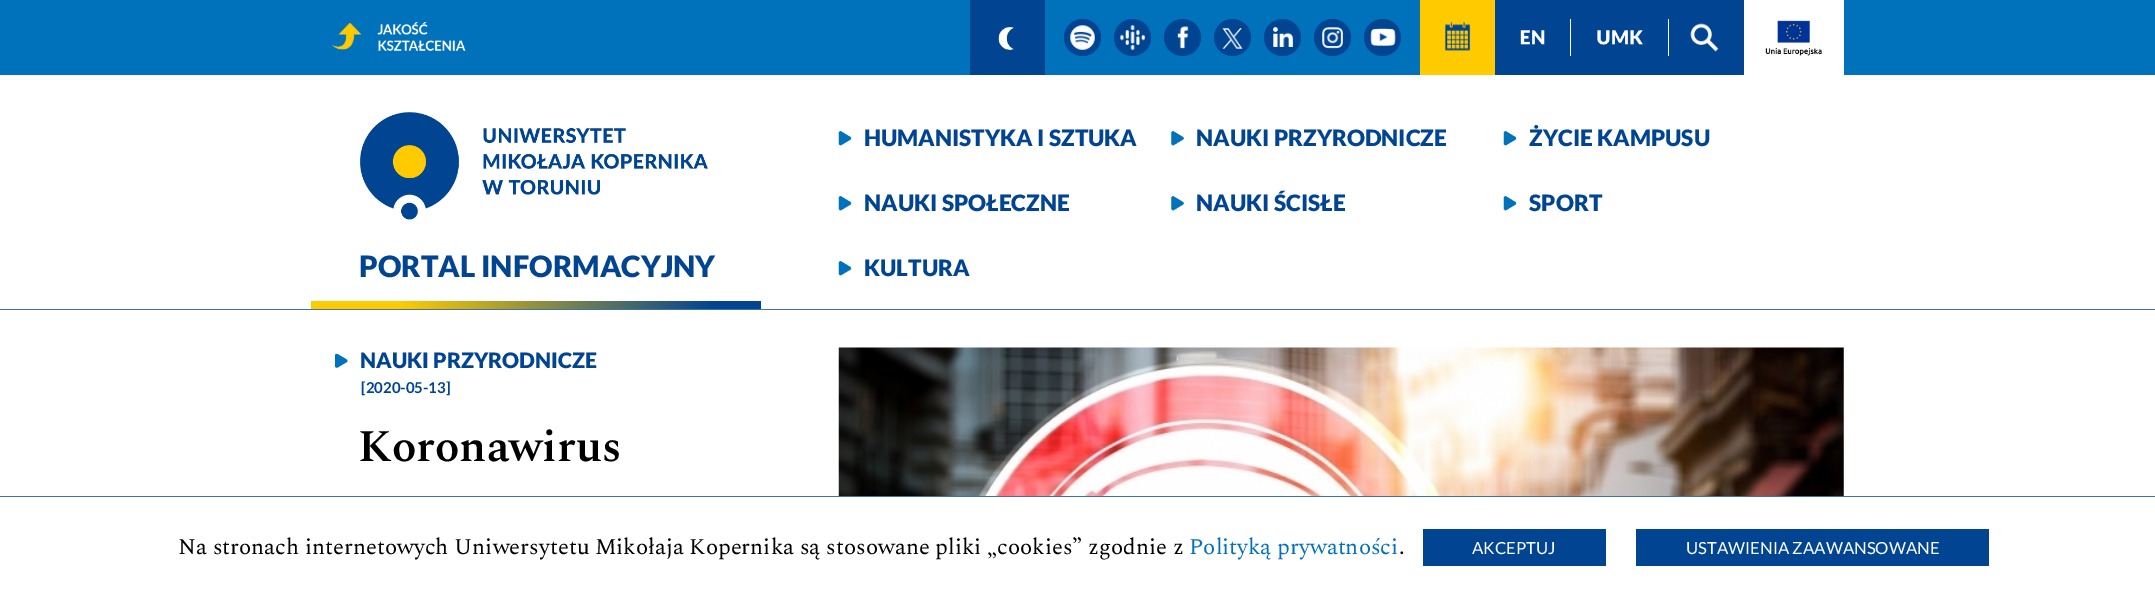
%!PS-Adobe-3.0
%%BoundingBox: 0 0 2155 603
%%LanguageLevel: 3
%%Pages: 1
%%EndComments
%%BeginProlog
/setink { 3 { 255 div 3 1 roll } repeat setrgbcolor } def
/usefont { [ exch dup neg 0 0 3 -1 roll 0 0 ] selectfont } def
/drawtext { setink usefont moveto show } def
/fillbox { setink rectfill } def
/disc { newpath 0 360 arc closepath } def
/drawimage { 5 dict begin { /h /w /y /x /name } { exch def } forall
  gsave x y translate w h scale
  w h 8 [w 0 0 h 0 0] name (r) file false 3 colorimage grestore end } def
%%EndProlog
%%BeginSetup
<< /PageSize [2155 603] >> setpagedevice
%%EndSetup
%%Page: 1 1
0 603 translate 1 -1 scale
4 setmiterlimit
0 0 2155 603 0 113 187 fillbox
970 0 75 75 0 68 146 fillbox
(assets/img1.rgb) 998 27 16 23 drawimage
1082.5 37.5 18.5 disc fill
(assets/img2.rgb) 1070 25 25 25 drawimage
1132.5 37.5 18.5 disc fill
(assets/img3.rgb) 1120 25 25 25 drawimage
1182.5 37.5 18.5 disc fill
(assets/img4.rgb) 1177 26 12 23 drawimage
1232.5 37.5 18.5 disc fill
(assets/img5.rgb) 1222 28 21 21 drawimage
1282.5 37.5 18.5 disc fill
(assets/img6.rgb) 1273 27 20 20 drawimage
1332.5 37.5 18.5 disc fill
(assets/img7.rgb) 1322 27 21 22 drawimage
1382.5 37.5 18.5 disc fill
(assets/img8.rgb) 1370 28 26 18 drawimage
1420 0 75 75 255 203 0 fillbox
(assets/img9.rgb) 1445 21 26 30 drawimage
1495 0 249 75 0 68 146 fillbox
1570 19 1 37 255 255 255 fillbox
(assets/img10.rgb) 1520 30 25 15 drawimage
1744 0 100 75 255 255 255 fillbox
(assets/img11.rgb) 1765 20 57 36 drawimage
(assets/img12.rgb) 332 22 134 29 drawimage
1668 19 1 37 255 255 255 fillbox
(assets/img13.rgb) 1597 30 46 15 drawimage
(assets/img14.rgb) 1690 23 29 29 drawimage
0 75 2155 234 255 255 255 fillbox
0 309 2155 1 63 114 173 fillbox
(assets/img15.rgb) 360 112 348 108 drawimage
(PORTAL INFORMACYJNY) 359 277 /Lato-Black 29.4 0 68 146 drawtext
gsave 311 301 moveto 761 301 lineto 761 309 lineto 311 309 lineto closepath clip newpath
<< /ShadingType 2 /ColorSpace /DeviceRGB /Coords [311 305 761 305] /Extend [true true] /Function << /FunctionType 3 /Domain [0 1] /Functions [<< /FunctionType 2 /Domain [0 1] /C0 [1 0.796 0] /C1 [1 0.796 0] /N 1 >> << /FunctionType 2 /Domain [0 1] /C0 [1 0.796 0] /C1 [0 0.267 0.573] /N 1 >> << /FunctionType 2 /Domain [0 1] /C0 [0 0.267 0.573] /C1 [0 0.267 0.573] /N 1 >>] /Bounds [0.2 0.9] /Encode [0 1 0 1 0 1] >> >> shfill grestore
(assets/img16.rgb) 838 131 14 15 drawimage
(HUMANISTYKA I SZTUKA) 864 146 /Lato-Black 22.5 0 68 146 drawtext
(assets/img17.rgb) 1171 130 13 16 drawimage
(NAUKI PRZYRODNICZE) 1196 146 /Lato-Black 22.5 0 68 146 drawtext
(assets/img18.rgb) 1503 131 14 15 drawimage
(ŻYCIE KAMPUSU) 1529 146 /Lato-Black 22.5 0 68 146 drawtext
(assets/img16.rgb) 838 196 14 15 drawimage
(NAUKI SPOŁECZNE) 864 211 /Lato-Black 22.5 0 68 146 drawtext
(assets/img17.rgb) 1171 195 13 16 drawimage
(NAUKI ŚCISŁE) 1196 211 /Lato-Black 22.5 0 68 146 drawtext
(assets/img18.rgb) 1503 196 14 15 drawimage
(SPORT) 1529 211 /Lato-Black 22.5 0 68 146 drawtext
(assets/img16.rgb) 838 261 14 15 drawimage
(KULTURA) 864 276 /Lato-Black 22.5 0 68 146 drawtext
0 310 2155 186 255 255 255 fillbox
(assets/img19.rgb) 335 353 13 15 drawimage
(NAUKI PRZYRODNICZE) 360 368 /Lato-Black 21.25 0 68 146 drawtext
(assets/img20.rgb) 838 347 1006 149 drawimage
([2020-05-13]) 361 393 /Lato-Bold 15 0 68 146 drawtext
(Koronawirus) 358 461 /Spectral-SemiBold 45 0 0 0 drawtext
0 497 2155 106 255 255 255 fillbox
0 496 2155 1 63 114 173 fillbox
(Na stronach internetowych Uniwersytetu Mikołaja Kopernika są stosowane pliki „cookies” zgodnie z) 178 554 /Spectral-Regular 22.5 0 0 0 drawtext
(Polityką prywatności) 1189 554 /Spectral-Regular 22.5 0 113 187 drawtext
(.) 1399 554 /Spectral-Regular 22.5 0 0 0 drawtext
1423 529 183 37 0 68 146 fillbox
(AKCEPTUJ) 1472 554 /Lato-Regular 16.7 255 255 255 drawtext
1636 529 353 37 0 68 146 fillbox
(USTAWIENIA ZAAWANSOWANE) 1686 554 /Lato-Regular 16.7 255 255 255 drawtext
showpage
%%EOF
